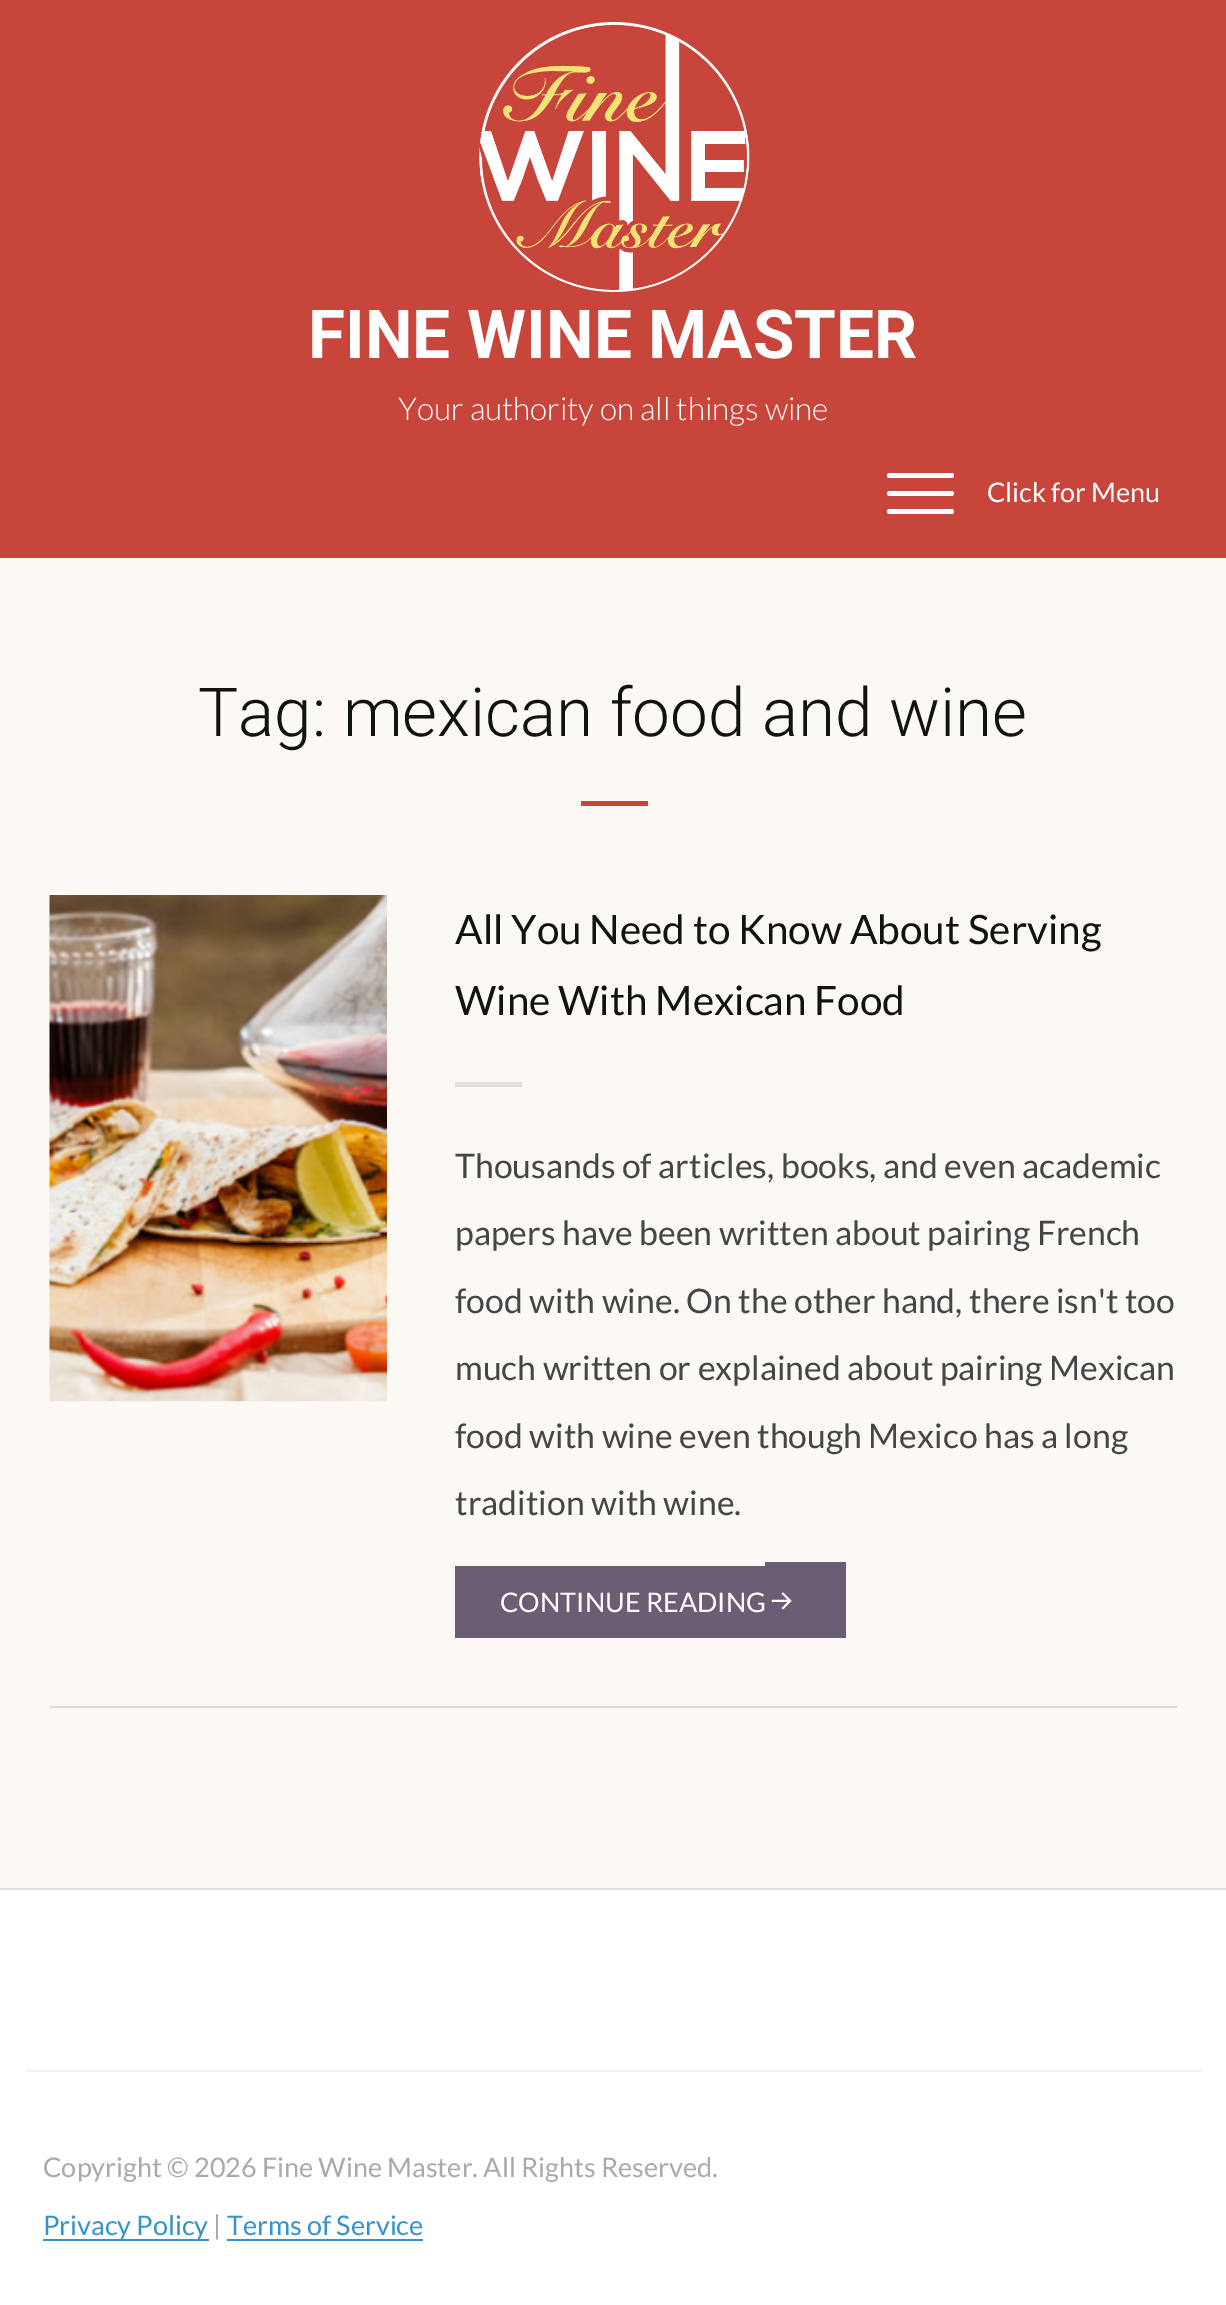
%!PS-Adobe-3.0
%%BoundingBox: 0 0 1226 2305
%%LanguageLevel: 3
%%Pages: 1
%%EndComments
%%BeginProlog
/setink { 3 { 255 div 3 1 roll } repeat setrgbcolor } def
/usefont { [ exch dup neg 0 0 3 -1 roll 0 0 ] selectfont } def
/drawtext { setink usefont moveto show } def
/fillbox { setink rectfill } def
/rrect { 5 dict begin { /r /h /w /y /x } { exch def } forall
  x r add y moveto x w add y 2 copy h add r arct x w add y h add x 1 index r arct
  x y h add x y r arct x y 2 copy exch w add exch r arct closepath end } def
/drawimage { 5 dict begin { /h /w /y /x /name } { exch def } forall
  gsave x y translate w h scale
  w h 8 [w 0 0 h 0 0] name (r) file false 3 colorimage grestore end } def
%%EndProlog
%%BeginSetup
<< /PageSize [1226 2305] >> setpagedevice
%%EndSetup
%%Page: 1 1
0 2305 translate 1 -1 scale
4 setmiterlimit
0 0 1226 2305 252 248 243 fillbox
0 0 1226 558 200 69 60 fillbox
(assets/img1.rgb) 479 22 271 270 drawimage
(FINE WINE MASTER) 308 358 /Roboto-Bold 67.5 255 255 255 drawtext
(Your authority on all things wine) 398 420 /Lato-Light 31.5 255 255 255 drawtext
887 473 67 5 2.5 rrect fill
887 491 67 5 2.5 rrect fill
887 509 67 5 2.5 rrect fill
(Click for Menu) 987 502 /Lato-Regular 27 255 255 255 drawtext
(Tag: mexican food and wine) 198 736 /Roboto-Light 67.5 18 18 18 drawtext
581 801 67 5 200 69 60 fillbox
50 1706 1127 2 221 218 213 fillbox
(assets/img2.rgb) 49 895 338 507 drawimage
(All You Need to Know About Serving) 455 944 /Lato-Regular 40.5 18 18 18 drawtext
(Wine With Mexican Food) 455 1015 /Lato-Regular 40.5 18 18 18 drawtext
455 1082 67 5 224 224 224 fillbox
(Thousands of articles, books, and even academic) 455 1178 /Lato-Regular 33.75 69 69 69 drawtext
(papers have been written about pairing French) 455 1245 /Lato-Regular 33.75 69 69 69 drawtext
(food with wine. On the other hand, there isn't too) 455 1313 /Lato-Regular 33.75 69 69 69 drawtext
(much written or explained about pairing Mexican) 455 1380 /Lato-Regular 33.75 69 69 69 drawtext
(food with wine even though Mexico has a long) 455 1448 /Lato-Regular 33.75 69 69 69 drawtext
(tradition with wine.) 455 1515 /Lato-Regular 33.75 69 69 69 drawtext
455 1566 310 72 107 93 115 fillbox
765 1562 81 76 107 93 115 fillbox
(CONTINUE READING) 500 1612 /Lato-Regular 27 255 255 255 drawtext
(assets/img3.rgb) 771 1592 21 18 drawimage
0 1890 1226 415 255 255 255 fillbox
0 1888 1226 2 226 223 218 fillbox
25 2070 1177 2 241 241 241 fillbox
(Copyright © 2026 Fine Wine Master. All Rights Reserved.) 43 2177 /Lato-Regular 27 170 170 170 drawtext
43 2239 166 2 53 146 205 fillbox
(Privacy Policy) 43 2235 /Lato-Regular 27 53 146 205 drawtext
(|) 213 2235 /Lato-Regular 27 170 170 170 drawtext
(Terms of Service) 227 2235 /Lato-Regular 27 53 146 205 drawtext
227 2239 196 2 53 146 205 fillbox
showpage
%%EOF
